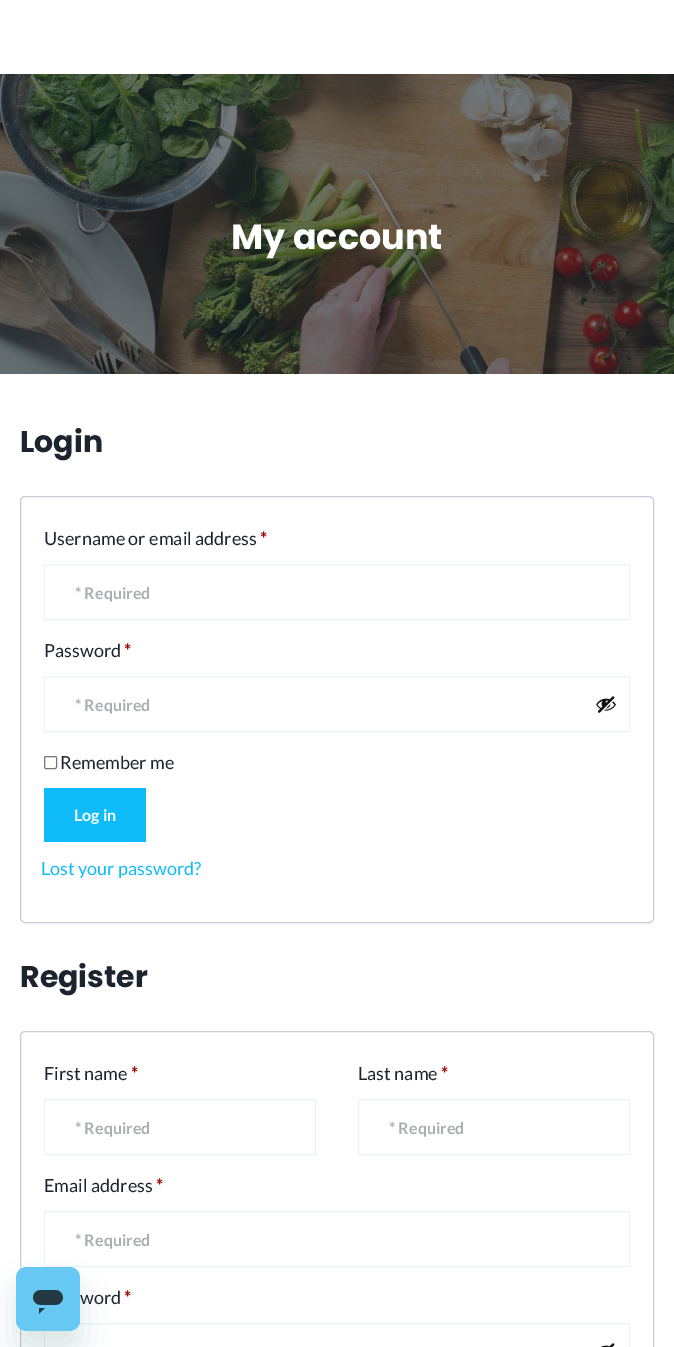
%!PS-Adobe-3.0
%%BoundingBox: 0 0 674 1347
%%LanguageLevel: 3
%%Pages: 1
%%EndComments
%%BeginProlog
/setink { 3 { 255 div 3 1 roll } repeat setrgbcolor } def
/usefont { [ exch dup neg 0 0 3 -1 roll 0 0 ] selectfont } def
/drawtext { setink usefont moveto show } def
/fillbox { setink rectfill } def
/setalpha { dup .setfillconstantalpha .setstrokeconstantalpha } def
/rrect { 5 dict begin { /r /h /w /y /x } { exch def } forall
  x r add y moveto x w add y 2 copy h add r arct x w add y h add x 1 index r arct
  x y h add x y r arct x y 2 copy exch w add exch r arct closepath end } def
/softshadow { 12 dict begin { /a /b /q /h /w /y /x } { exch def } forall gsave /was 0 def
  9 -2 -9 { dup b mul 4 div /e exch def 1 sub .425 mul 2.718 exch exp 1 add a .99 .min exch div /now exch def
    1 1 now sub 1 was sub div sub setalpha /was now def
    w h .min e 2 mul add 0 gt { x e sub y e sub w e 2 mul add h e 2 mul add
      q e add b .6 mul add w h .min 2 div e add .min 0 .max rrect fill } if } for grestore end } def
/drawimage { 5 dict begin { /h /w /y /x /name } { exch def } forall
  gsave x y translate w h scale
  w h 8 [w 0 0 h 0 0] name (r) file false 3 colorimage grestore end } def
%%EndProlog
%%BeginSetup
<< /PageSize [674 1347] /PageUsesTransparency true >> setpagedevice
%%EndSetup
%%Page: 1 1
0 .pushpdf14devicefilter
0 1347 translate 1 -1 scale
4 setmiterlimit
0 0 674 1347 255 255 255 fillbox
(assets/img1.rgb) 0 74 674 300 drawimage
(My account) 231 249 /Poppins-Bold 35 255 255 255 drawtext
(Login) 20 452 /Poppins-Bold 30 28 37 46 drawtext
207 200 216 setink
20.5 496.5 633 426 4.5 rrect stroke
(Username or email address) 44 545 /Lato-Regular 18 28 37 46 drawtext
(*) 260 545 /Lato-Bold 18 170 0 0 drawtext
237 242 245 setink
44.5 564.5 585 55 rectstroke
(* Required) 75 599 /Lato-Bold 16 171 174 178 drawtext
(Password) 44 657 /Lato-Regular 18 28 37 46 drawtext
(*) 124 657 /Lato-Bold 18 170 0 0 drawtext
237 242 245 setink
44.5 676.5 585 55 rectstroke
(* Required) 75 711 /Lato-Bold 16 171 174 178 drawtext
(assets/img2.rgb) 596 696 20 17 drawimage
118 118 118 setink
44.5 756.5 12 12 1.5 rrect stroke
(Remember me) 60 769 /Lato-Regular 18 28 37 46 drawtext
44 788 102 54 15 188 249 fillbox
(Log in) 74 821 /Lato-Bold 16 255 255 255 drawtext
(Lost your password?) 41 875 /Lato-Regular 18 15 188 249 drawtext
(Register) 20 987 /Poppins-Bold 30 28 37 46 drawtext
207 200 216 setink
20.5 1031.5 633 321 4.5 rrect stroke
(First name) 44 1080 /Lato-Regular 18 28 37 46 drawtext
(*) 131 1080 /Lato-Bold 18 170 0 0 drawtext
237 242 245 setink
44.5 1099.5 271 55 rectstroke
(* Required) 75 1134 /Lato-Bold 16 171 174 178 drawtext
(Last name) 358 1080 /Lato-Regular 18 28 37 46 drawtext
(*) 441 1080 /Lato-Bold 18 170 0 0 drawtext
237 242 245 setink
358.5 1099.5 271 55 rectstroke
(* Required) 389 1134 /Lato-Bold 16 171 174 178 drawtext
(Email address) 44 1192 /Lato-Regular 18 28 37 46 drawtext
(*) 156 1192 /Lato-Bold 18 170 0 0 drawtext
237 242 245 setink
44.5 1211.5 585 55 rectstroke
(* Required) 75 1246 /Lato-Bold 16 171 174 178 drawtext
(word) 80 1304 /Lato-Regular 18 28 37 46 drawtext
(*) 124 1304 /Lato-Bold 18 170 0 0 drawtext
237 242 245 setink
44.5 1323.5 585 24 rectstroke
(assets/img3.rgb) 601 1343 14 4 drawimage
23 73 77 setink
16 1287 64 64 10 15 0.15 softshadow
(assets/img4.rgb) 16 1267 64 64 drawimage
.poppdf14devicefilter showpage
%%EOF
